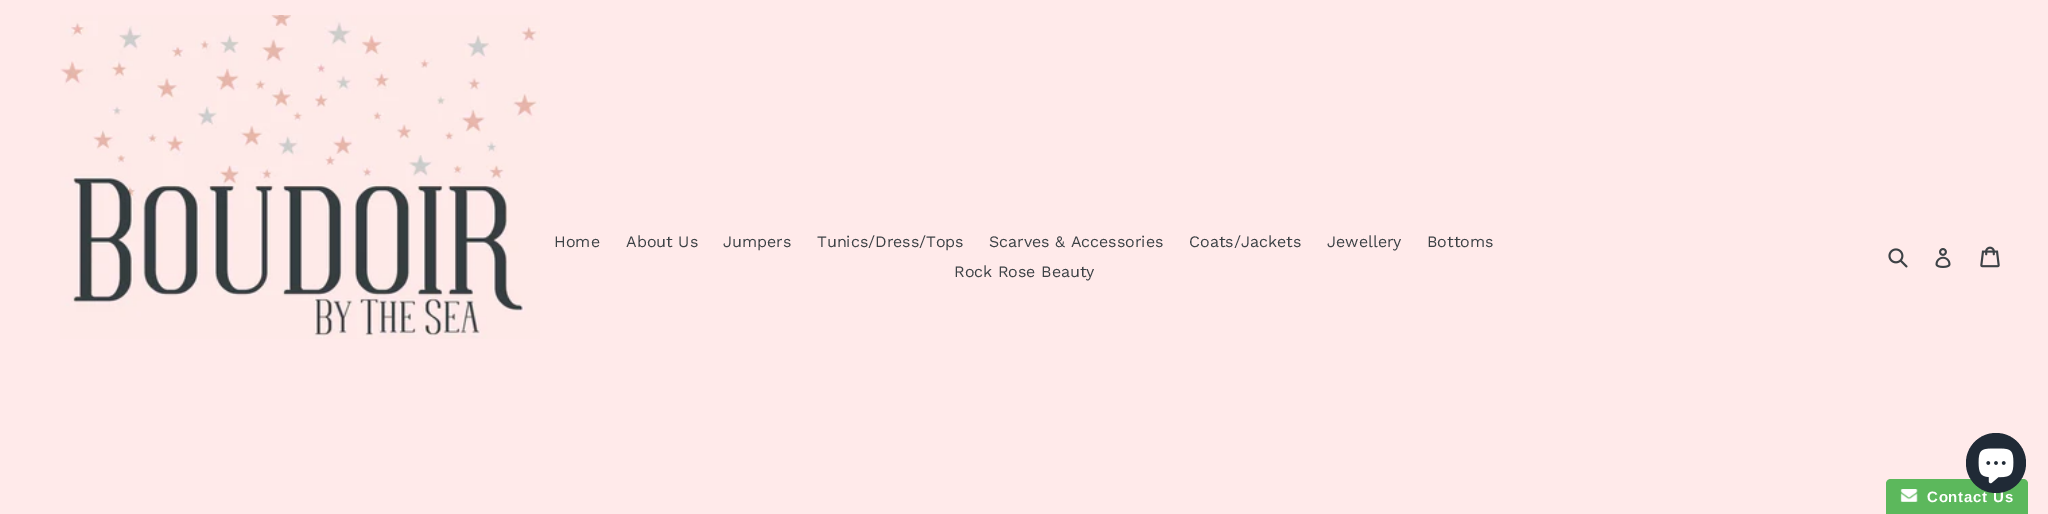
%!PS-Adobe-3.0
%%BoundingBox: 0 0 2048 514
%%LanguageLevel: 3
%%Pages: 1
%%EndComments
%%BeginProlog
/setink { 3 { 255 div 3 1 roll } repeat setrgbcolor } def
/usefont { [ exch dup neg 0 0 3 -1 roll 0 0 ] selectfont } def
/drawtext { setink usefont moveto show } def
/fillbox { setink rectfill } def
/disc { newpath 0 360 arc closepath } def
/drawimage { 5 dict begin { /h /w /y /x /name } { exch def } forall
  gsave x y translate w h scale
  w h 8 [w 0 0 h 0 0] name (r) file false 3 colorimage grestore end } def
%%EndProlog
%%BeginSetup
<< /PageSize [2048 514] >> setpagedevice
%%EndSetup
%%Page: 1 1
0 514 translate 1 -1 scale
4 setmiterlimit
0 0 2048 514 255 234 234 fillbox
(assets/img1.rgb) 60 15 480 324 drawimage
(Home) 554 247 /WorkSans-Regular 16 61 66 70 drawtext
(About Us) 626 247 /WorkSans-Regular 16 61 66 70 drawtext
(Jumpers) 723 247 /WorkSans-Regular 16 61 66 70 drawtext
(Tunics/Dress/Tops) 817 247 /WorkSans-Regular 16 61 66 70 drawtext
(Scarves & Accessories) 989 247 /WorkSans-Regular 16 61 66 70 drawtext
(Coats/Jackets) 1189 247 /WorkSans-Regular 16 61 66 70 drawtext
(Jewellery) 1327 247 /WorkSans-Regular 16 61 66 70 drawtext
(Bottoms) 1427 247 /WorkSans-Regular 16 61 66 70 drawtext
(Rock Rose Beauty) 954 277 /WorkSans-Regular 16 61 66 70 drawtext
(assets/img2.rgb) 1888 248 20 20 drawimage
(assets/img3.rgb) 1935 248 16 20 drawimage
(assets/img4.rgb) 1980 246 20 22 drawimage
92 184 92 setink
1891 479 moveto 2023 479 lineto 2026 479 2028 481 2028 484 curveto 2028 514 lineto 1886 514 lineto 1886 484 lineto 1886 481 1888 479 1891 479 curveto closepath fill
/LiberationSans-Bold 15 usefont
255 255 255 setink
1927 502 moveto 0.75 0 (Contact Us) ashow
32 42 54 setink
1996 463 30 disc fill
(assets/img5.rgb) 1978 448 36 36 drawimage
(assets/img6.rgb) 1900 489 18 13 drawimage
showpage
%%EOF
